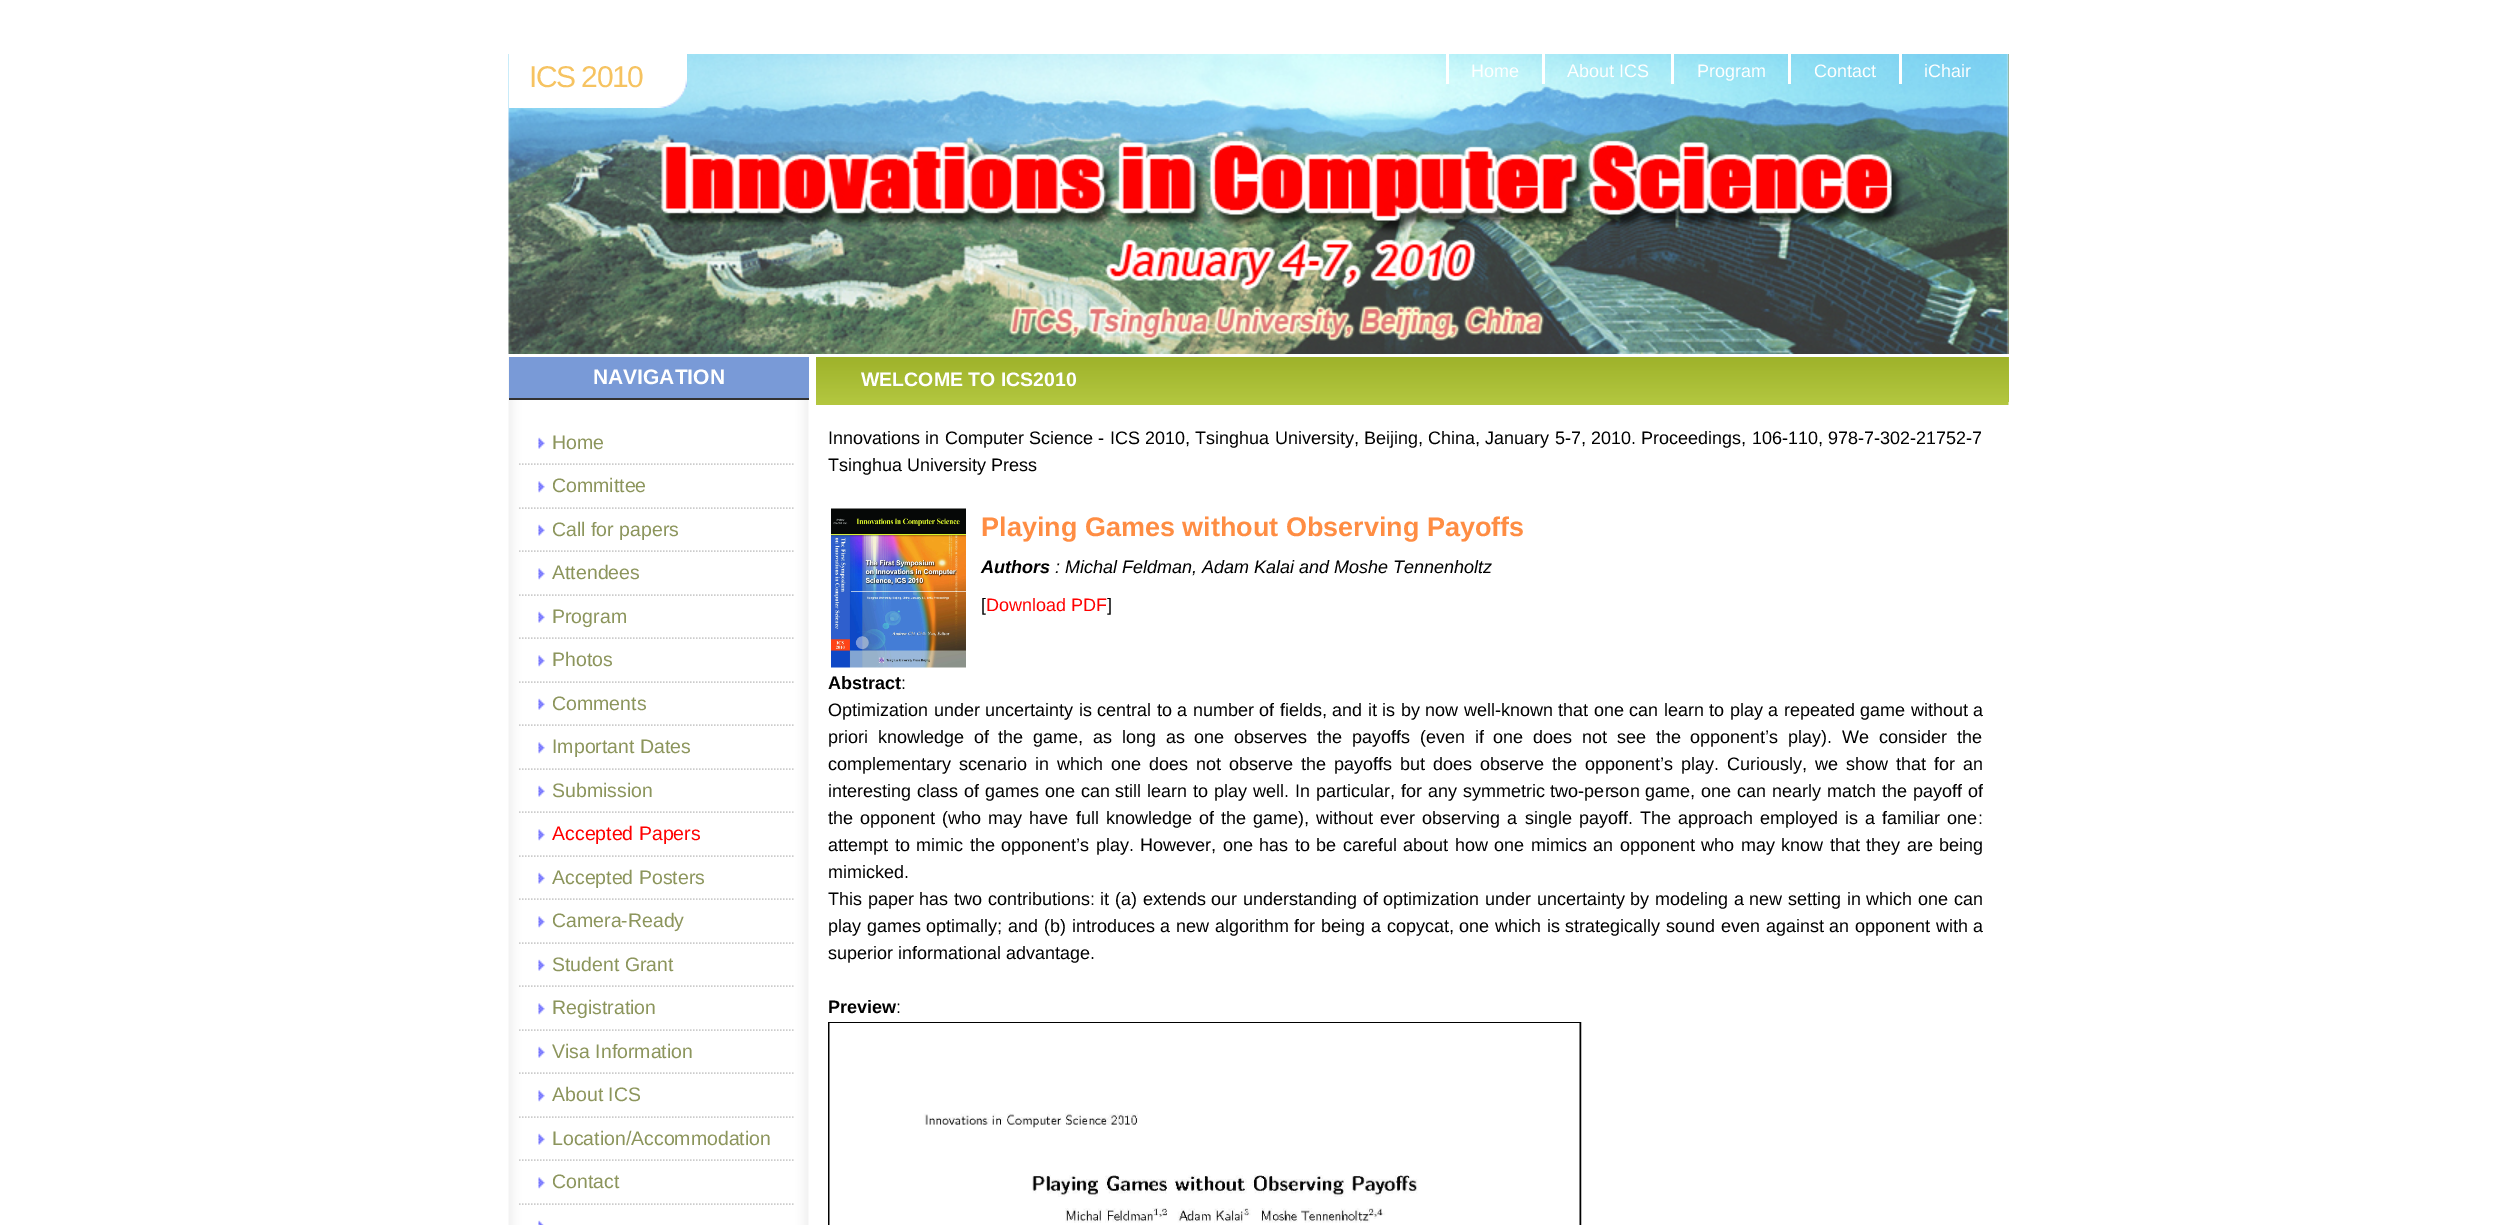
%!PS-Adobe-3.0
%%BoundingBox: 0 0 2516 1225
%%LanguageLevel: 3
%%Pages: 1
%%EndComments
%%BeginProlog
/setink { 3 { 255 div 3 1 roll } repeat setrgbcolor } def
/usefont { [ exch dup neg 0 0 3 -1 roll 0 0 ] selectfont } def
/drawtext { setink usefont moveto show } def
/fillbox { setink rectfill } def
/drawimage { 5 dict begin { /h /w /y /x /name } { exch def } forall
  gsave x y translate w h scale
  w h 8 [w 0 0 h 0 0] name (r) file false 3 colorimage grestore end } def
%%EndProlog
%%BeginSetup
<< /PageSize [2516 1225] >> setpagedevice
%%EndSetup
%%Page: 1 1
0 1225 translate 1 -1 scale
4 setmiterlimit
0 0 2516 1225 255 255 255 fillbox
2008 54 1 300 140 149 92 fillbox
(assets/img1.rgb) 508 54 1501 300 drawimage
509 54 148 54 255 255 255 fillbox
/LiberationSans-Regular 30 usefont
246 195 97 setink
529 87 moveto -1.5 0 (ICS 2010) ashow
(assets/img2.rgb) 657 54 30 54 drawimage
1446 54 3 30 255 255 255 fillbox
(Home) 1471 77 /LiberationSans-Regular 18 255 255 255 drawtext
1542 54 3 30 255 255 255 fillbox
(About ICS) 1567 77 /LiberationSans-Regular 18 255 255 255 drawtext
1671 54 3 30 255 255 255 fillbox
(Program) 1697 77 /LiberationSans-Regular 18 255 255 255 drawtext
1788 54 3 30 255 255 255 fillbox
(Contact) 1814 77 /LiberationSans-Regular 18 255 255 255 drawtext
1899 54 3 30 255 255 255 fillbox
(iChair) 1924 77 /LiberationSans-Regular 18 255 255 255 drawtext
(assets/img3.rgb) 508 357 301 868 drawimage
509 357 300 41 121 154 215 fillbox
(NAVIGATION) 593 384 /LiberationSans-Bold 21 255 255 255 drawtext
509 398 300 2 51 51 51 fillbox
(assets/img4.rgb) 538 437 7 12 drawimage
204 204 204 setink
1.5 setlinewidth
[1.5 1.5] 0 setdash
519 464 moveto 793.5 464 lineto stroke
(Home) 552 449 /LiberationSans-Regular 19.5 140 149 92 drawtext
(assets/img5.rgb) 538 481 7 12 drawimage
204 204 204 setink
519 508 moveto 793.5 508 lineto stroke
(Committee) 552 492 /LiberationSans-Regular 19.5 140 149 92 drawtext
(assets/img4.rgb) 538 524 7 12 drawimage
204 204 204 setink
519 551 moveto 793.5 551 lineto stroke
(Call for papers) 552 536 /LiberationSans-Regular 19.5 140 149 92 drawtext
(assets/img5.rgb) 538 568 7 12 drawimage
204 204 204 setink
519 595 moveto 793.5 595 lineto stroke
(Attendees) 552 579 /LiberationSans-Regular 19.5 140 149 92 drawtext
(assets/img4.rgb) 538 611 7 12 drawimage
204 204 204 setink
519 638 moveto 793.5 638 lineto stroke
(Program) 552 623 /LiberationSans-Regular 19.5 140 149 92 drawtext
(assets/img5.rgb) 538 655 7 12 drawimage
204 204 204 setink
519 682 moveto 793.5 682 lineto stroke
(Photos) 552 666 /LiberationSans-Regular 19.5 140 149 92 drawtext
(assets/img4.rgb) 538 698 7 12 drawimage
204 204 204 setink
519 725 moveto 793.5 725 lineto stroke
(Comments) 552 710 /LiberationSans-Regular 19.5 140 149 92 drawtext
(assets/img5.rgb) 538 742 7 12 drawimage
204 204 204 setink
519 769 moveto 793.5 769 lineto stroke
(Important Dates) 552 753 /LiberationSans-Regular 19.5 140 149 92 drawtext
(assets/img4.rgb) 538 785 7 12 drawimage
204 204 204 setink
519 812 moveto 793.5 812 lineto stroke
(Submission) 552 797 /LiberationSans-Regular 19.5 140 149 92 drawtext
(assets/img5.rgb) 538 829 7 12 drawimage
204 204 204 setink
519 856 moveto 793.5 856 lineto stroke
(Accepted Papers) 552 840 /LiberationSans-Regular 19.5 255 0 0 drawtext
(assets/img4.rgb) 538 872 7 12 drawimage
204 204 204 setink
519 899 moveto 793.5 899 lineto stroke
(Accepted Posters) 552 884 /LiberationSans-Regular 19.5 140 149 92 drawtext
(assets/img5.rgb) 538 916 7 12 drawimage
204 204 204 setink
519 943 moveto 793.5 943 lineto stroke
(Camera-Ready) 552 927 /LiberationSans-Regular 19.5 140 149 92 drawtext
(assets/img4.rgb) 538 959 7 12 drawimage
204 204 204 setink
519 986 moveto 793.5 986 lineto stroke
(Student Grant) 552 971 /LiberationSans-Regular 19.5 140 149 92 drawtext
(assets/img5.rgb) 538 1003 7 12 drawimage
204 204 204 setink
519 1030 moveto 793.5 1030 lineto stroke
(Registration) 552 1014 /LiberationSans-Regular 19.5 140 149 92 drawtext
(assets/img4.rgb) 538 1046 7 12 drawimage
204 204 204 setink
519 1073 moveto 793.5 1073 lineto stroke
(Visa Information) 552 1058 /LiberationSans-Regular 19.5 140 149 92 drawtext
(assets/img5.rgb) 538 1090 7 12 drawimage
204 204 204 setink
519 1117 moveto 793.5 1117 lineto stroke
(About ICS) 552 1101 /LiberationSans-Regular 19.5 140 149 92 drawtext
(assets/img4.rgb) 538 1133 7 12 drawimage
204 204 204 setink
519 1160 moveto 793.5 1160 lineto stroke
(Location/Accommodation) 552 1145 /LiberationSans-Regular 19.5 140 149 92 drawtext
(assets/img5.rgb) 538 1177 7 12 drawimage
204 204 204 setink
519 1204 moveto 793.5 1204 lineto stroke
(Contact) 552 1188 /LiberationSans-Regular 19.5 140 149 92 drawtext
(assets/img6.rgb) 538 1220 6 5 drawimage
(assets/img7.rgb) 816 357 1193 48 drawimage
2008 357 1 45 168 187 53 fillbox
(assets/img8.rgb) 839 357 1170 45 drawimage
(WELCOME TO ICS2010) 861 386 /LiberationSans-Bold 19.5 255 255 255 drawtext
/LiberationSans-Regular 18 usefont
0 0 0 setink
828 444 moveto 0.3 0 32 (Innovations in Computer Science - ICS 2010, Tsinghua University, Beijing, China, January 5-7, 2010. Proceedings, 106-110, 978-7-302-21752-7) widthshow
(Tsinghua University Press) 828 471 /LiberationSans-Regular 18 0 0 0 drawtext
(assets/img9.rgb) 831 508 135 160 drawimage
(Playing Games without Observing Payoffs) 981 536 /LiberationSans-Bold 27 255 141 67 drawtext
(Authors) 981 573 /LiberationSans-BoldItalic 18 0 0 0 drawtext
(: Michal Feldman, Adam Kalai and Moshe Tennenholtz) 1055 573 /LiberationSans-Italic 18 0 0 0 drawtext
([) 981 611 /LiberationSans-Regular 18 0 0 0 drawtext
(Download PDF) 986 611 /LiberationSans-Regular 18 255 0 0 drawtext
(]) 1107 611 /LiberationSans-Regular 18 0 0 0 drawtext
(Abstract) 828 689 /LiberationSans-Bold 18 0 0 0 drawtext
(:) 901 689 /LiberationSans-Regular 18 0 0 0 drawtext
828 716 moveto 0.5 0 32 (Optimization under uncertainty is central to a number of fields, and it is by now well-known that one can learn to play a repeated game without a) widthshow
828 743 moveto 4.8 0 32 (priori knowledge of the game, as long as one observes the payoffs \(even if one does not see the opponent’s play\). We consider the) widthshow
828 770 moveto 3 0 32 (complementary scenario in which one does not observe the payoffs but does observe the opponent’s play. Curiously, we show that for an) widthshow
828 797 moveto 0.9 0 32 (interesting class of games one can still learn to play well. In particular, for any symmetric two-person game, one can nearly match the payoff of) widthshow
828 824 moveto 2.1 0 32 (the opponent \(who may have full knowledge of the game\), without ever observing a single payoff. The approach employed is a familiar one:) widthshow
828 851 moveto 1.5 0 32 (attempt to mimic the opponent’s play. However, one has to be careful about how one mimics an opponent who may know that they are being) widthshow
(mimicked.) 828 878 /LiberationSans-Regular 18 0 0 0 drawtext
828 905 moveto 0.65 0 32 (This paper has two contributions: it \(a\) extends our understanding of optimization under uncertainty by modeling a new setting in which one can) widthshow
828 932 moveto 0.7 0 32 (play games optimally; and \(b\) introduces a new algorithm for being a copycat, one which is strategically sound even against an opponent with a) widthshow
(superior informational advantage.) 828 959 /LiberationSans-Regular 18 0 0 0 drawtext
(Preview) 828 1013 /LiberationSans-Bold 18 0 0 0 drawtext
(:) 896 1013 /LiberationSans-Regular 18 0 0 0 drawtext
2 setlinewidth
[] 0 setdash
829 1023 751 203 rectstroke
(assets/img10.rgb) 829 1023 751 202 drawimage
showpage
%%EOF
